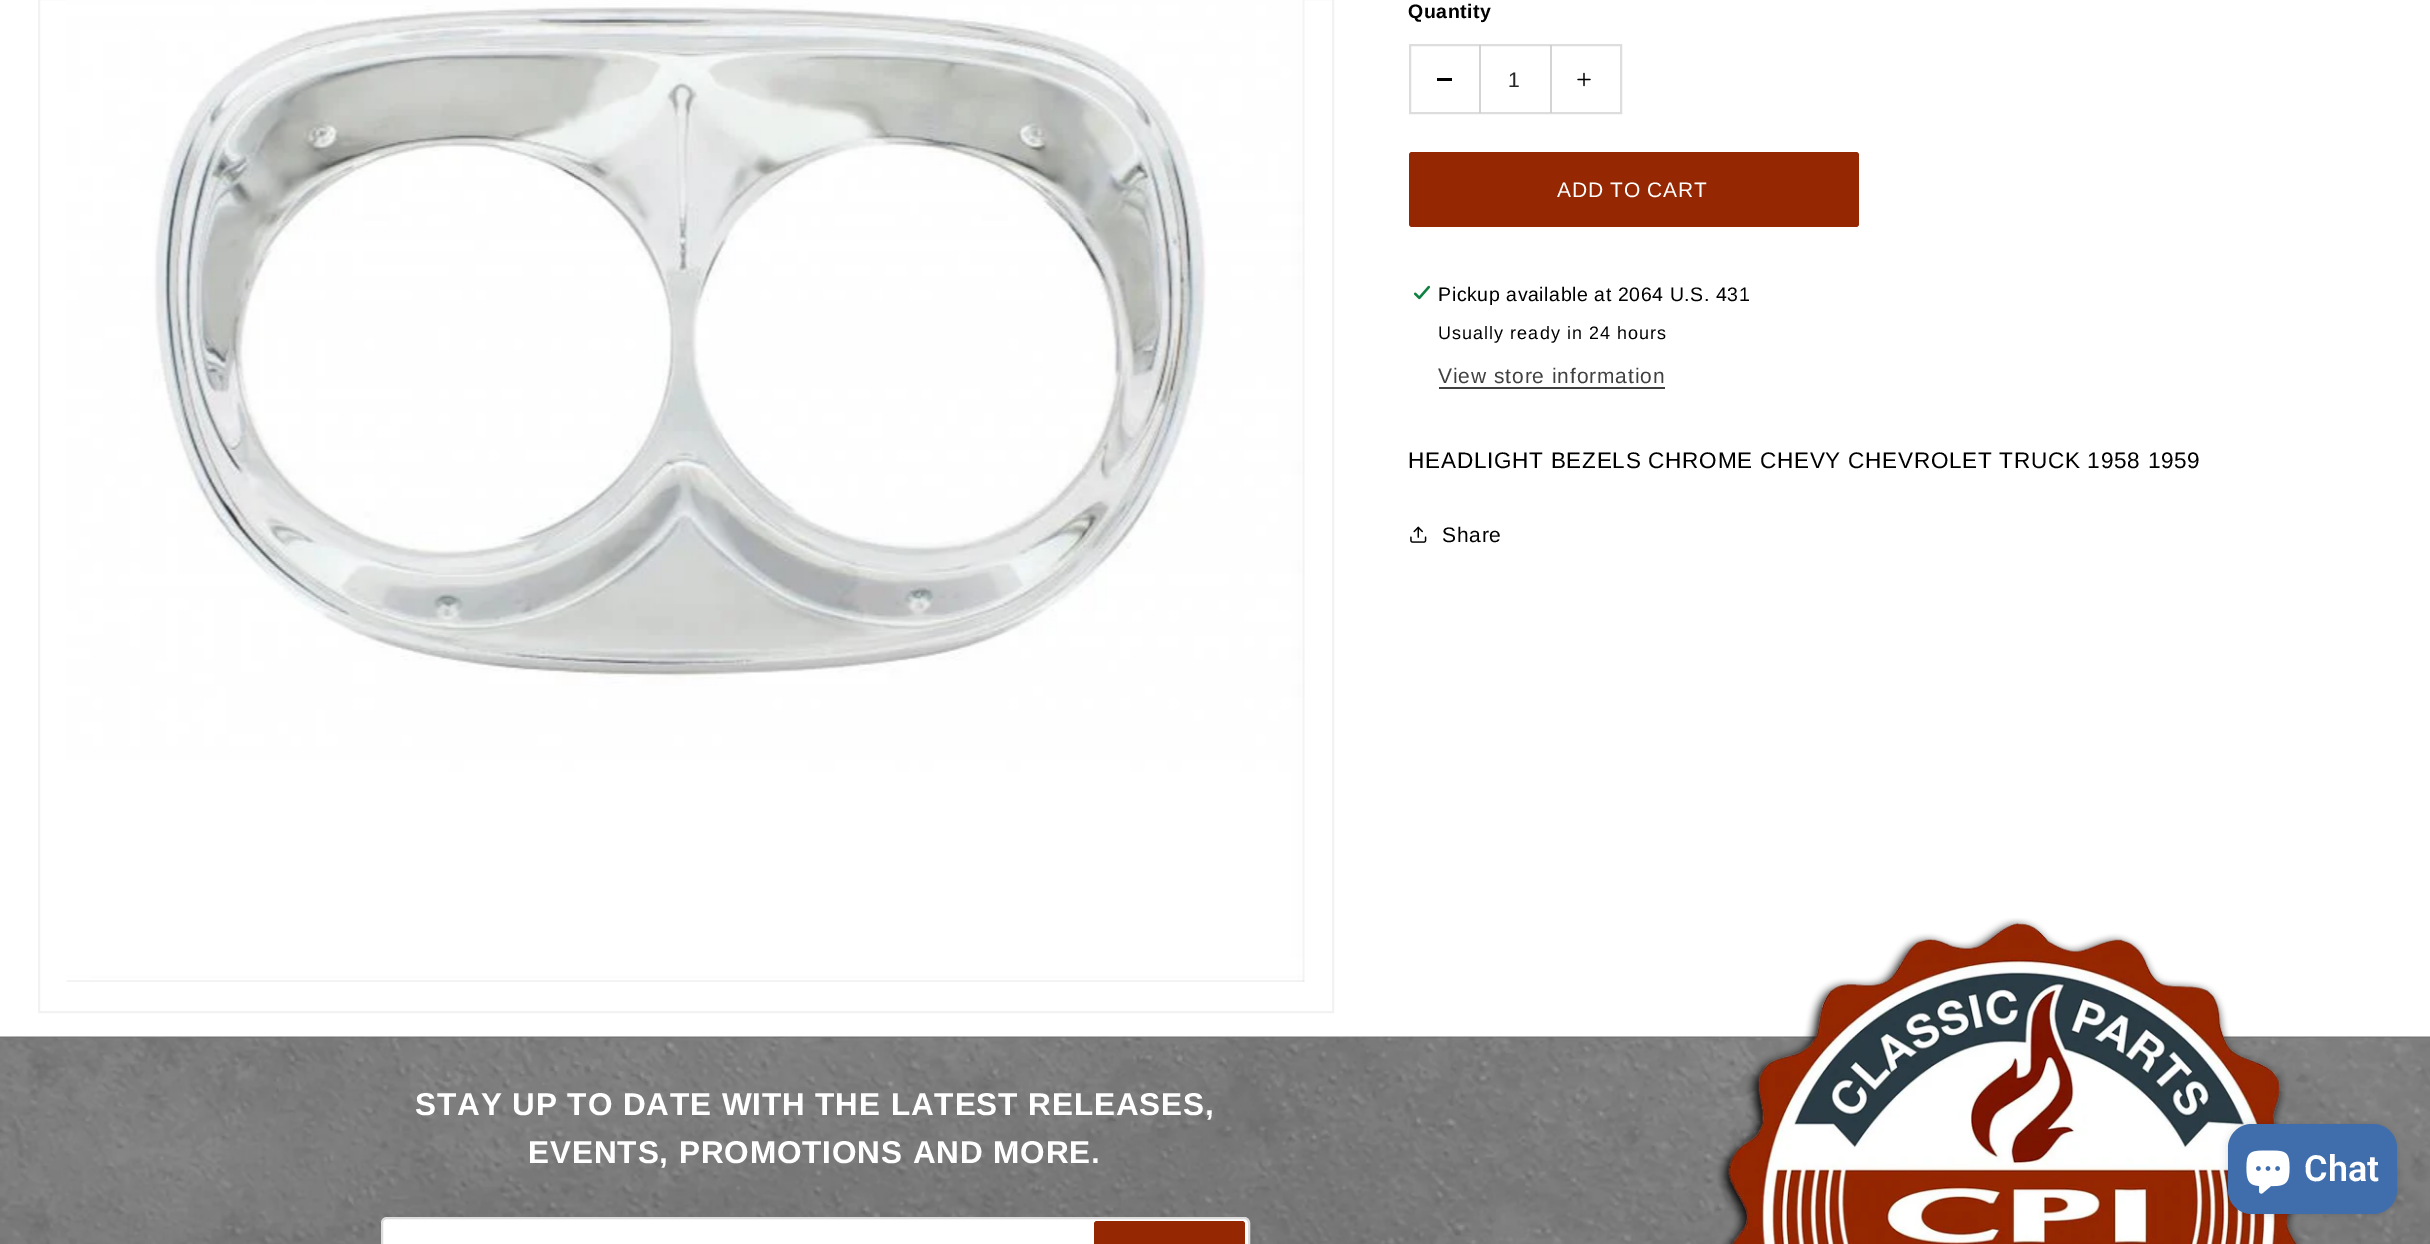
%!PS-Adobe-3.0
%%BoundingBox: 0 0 2430 1244
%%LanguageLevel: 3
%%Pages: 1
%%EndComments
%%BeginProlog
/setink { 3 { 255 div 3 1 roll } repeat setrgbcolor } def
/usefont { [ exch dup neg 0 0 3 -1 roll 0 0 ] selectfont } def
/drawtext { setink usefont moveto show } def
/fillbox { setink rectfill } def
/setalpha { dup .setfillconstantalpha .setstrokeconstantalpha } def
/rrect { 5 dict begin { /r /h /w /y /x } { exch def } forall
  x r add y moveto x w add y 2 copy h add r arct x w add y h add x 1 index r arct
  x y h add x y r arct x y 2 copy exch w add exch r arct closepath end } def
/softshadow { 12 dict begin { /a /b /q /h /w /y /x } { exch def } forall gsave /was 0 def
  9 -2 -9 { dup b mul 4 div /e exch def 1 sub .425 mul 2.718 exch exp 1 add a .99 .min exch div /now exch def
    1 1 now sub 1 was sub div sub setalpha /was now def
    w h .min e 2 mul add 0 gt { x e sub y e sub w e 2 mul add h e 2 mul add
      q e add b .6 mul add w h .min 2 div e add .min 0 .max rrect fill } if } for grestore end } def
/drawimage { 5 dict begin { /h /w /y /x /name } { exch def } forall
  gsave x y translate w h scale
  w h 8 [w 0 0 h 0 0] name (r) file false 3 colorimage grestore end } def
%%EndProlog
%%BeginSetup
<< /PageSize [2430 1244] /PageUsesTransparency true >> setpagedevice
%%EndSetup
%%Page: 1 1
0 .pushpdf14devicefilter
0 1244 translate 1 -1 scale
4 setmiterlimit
0 0 2430 1244 255 255 255 fillbox
242 242 242 setink
2 setlinewidth
39 -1 1294 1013 rectstroke
(assets/img1.rgb) 66 0 1239 982 drawimage
/LiberationSans-Bold 19.5 usefont
0 0 0 setink
1408 18 moveto 0.6 0 (Quantity) ashow
221 221 221 setink
1410 45 211 68 rectstroke
1437 78 15 3 0 0 0 fillbox
0.85 setalpha
1550 45 2 68 204 204 204 fillbox
1479 45 2 68 204 204 204 fillbox
1 setalpha
(1) 1508 87 /LiberationSans-Regular 21 38 38 38 drawtext
(assets/img2.rgb) 1577 72 14 15 drawimage
149 39 3 setink
1409 152 450 75 3 rrect fill
255 255 255 setink
1557 197 moveto 0.75 0 (ADD TO CART) ashow
(assets/img3.rgb) 1413 285 18 15 drawimage
/LiberationSans-Regular 19.5 usefont
0 0 0 setink
1438 301 moveto 0.6 0 (Pickup available at 2064 U.S. 431) ashow
/LiberationSans-Regular 18 usefont
1438 339 moveto 1.05 0 (Usually ready in 24 hours) ashow
/LiberationSans-Regular 21 usefont
64 64 64 setink
1438 383 moveto 0.9 0 (View store information) ashow
1439 387 226 2 64 64 64 fillbox
/LiberationSans-Regular 22.5 usefont
0 0 0 setink
1408 468 moveto 0.75 0 (HEADLIGHT BEZELS CHROME CHEVY CHEVROLET TRUCK 1958 1959) ashow
(assets/img4.rgb) 1410 526 17 17 drawimage
/LiberationSans-Regular 21 usefont
1442 542 moveto 0.75 0 (Share) ashow
(assets/img5.rgb) 0 1036 2430 208 drawimage
/LiberationSans-Bold 31.5 usefont
255 255 255 setink
415 1115 moveto 0.9 0 (STAY UP TO DATE WITH THE LATEST RELEASES,) ashow
528 1163 moveto 0.9 0 (EVENTS, PROMOTIONS AND MORE.) ashow
382 1218 867 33 5 rrect gsave fill grestore
221 221 221 setink
stroke
149 39 3 setink
1094 1221 151 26 3 rrect fill
(assets/img6.rgb) 1717 918 586 326 drawimage
0 0 0 setink
2228 1124 169 90 24 4 0.15 softshadow
64 110 173 setink
2228 1124 169 90 24 rrect fill
(assets/img7.rgb) 2246 1150 44 44 drawimage
(Chat) 2304 1181 /Roboto-SemiBold 36 255 255 255 drawtext
.poppdf14devicefilter showpage
%%EOF
